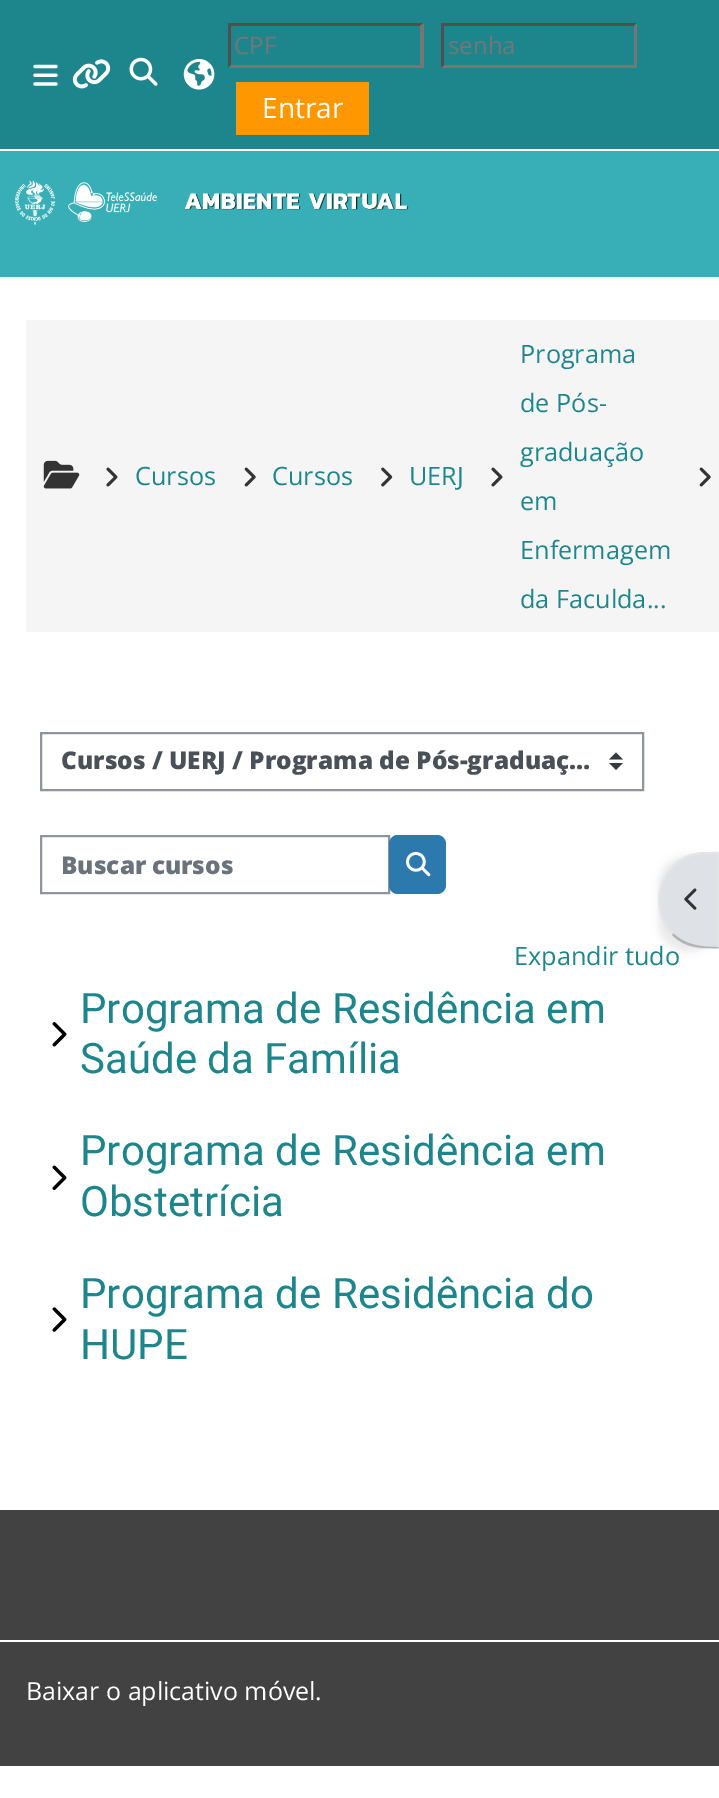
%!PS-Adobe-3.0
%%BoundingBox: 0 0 719 1798
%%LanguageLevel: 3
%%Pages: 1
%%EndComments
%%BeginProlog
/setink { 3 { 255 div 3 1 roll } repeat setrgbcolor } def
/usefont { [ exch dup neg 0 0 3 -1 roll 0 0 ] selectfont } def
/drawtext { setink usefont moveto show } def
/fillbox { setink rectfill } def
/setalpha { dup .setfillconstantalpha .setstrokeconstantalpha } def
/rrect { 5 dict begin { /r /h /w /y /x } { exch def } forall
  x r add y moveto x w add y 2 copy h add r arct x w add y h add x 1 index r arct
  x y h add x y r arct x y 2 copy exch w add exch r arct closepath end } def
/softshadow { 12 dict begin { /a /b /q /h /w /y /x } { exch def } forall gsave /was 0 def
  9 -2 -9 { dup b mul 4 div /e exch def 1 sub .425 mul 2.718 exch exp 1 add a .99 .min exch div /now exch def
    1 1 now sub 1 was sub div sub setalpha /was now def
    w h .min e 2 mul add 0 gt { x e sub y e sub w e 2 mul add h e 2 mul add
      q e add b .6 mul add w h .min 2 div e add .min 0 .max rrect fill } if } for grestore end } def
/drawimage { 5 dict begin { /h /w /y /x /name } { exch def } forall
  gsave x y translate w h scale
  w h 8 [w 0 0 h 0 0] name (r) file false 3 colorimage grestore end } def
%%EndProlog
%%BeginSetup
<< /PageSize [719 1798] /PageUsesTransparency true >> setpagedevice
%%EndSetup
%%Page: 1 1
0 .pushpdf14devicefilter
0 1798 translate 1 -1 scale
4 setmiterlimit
0 0 719 1798 255 255 255 fillbox
0 151 719 126 56 175 183 fillbox
0 0 719 149 29 134 141 fillbox
(assets/img1.rgb) 33 64 25 22 drawimage
(assets/img2.rgb) 72 59 39 30 drawimage
(assets/img3.rgb) 129 57 29 29 drawimage
(assets/img4.rgb) 183 59 32 31 drawimage
79 79 79 setink
228 23 moveto 424 23 lineto 420 26 lineto 231 26 lineto closepath fill
118 118 118 setink
424 23 moveto 424 68 lineto 420 65 lineto 420 26 lineto closepath fill
424 68 moveto 228 68 lineto 231 65 lineto 420 65 lineto closepath fill
79 79 79 setink
228 68 moveto 228 23 lineto 231 26 lineto 231 65 lineto closepath fill
(CPF) 234 54 /OpenSans-Regular 24 117 117 117 drawtext
79 79 79 setink
441 23 moveto 637 23 lineto 634 26 lineto 444 26 lineto closepath fill
118 118 118 setink
637 23 moveto 637 68 lineto 634 65 lineto 634 26 lineto closepath fill
637 68 moveto 441 68 lineto 444 65 lineto 634 65 lineto closepath fill
79 79 79 setink
441 68 moveto 441 23 lineto 444 26 lineto 444 65 lineto closepath fill
(senha) 448 54 /OpenSans-Regular 24 117 117 117 drawtext
236 82 133 53 255 152 0 fillbox
(Entrar) 262 118 /OpenSans-Regular 28 255 255 255 drawtext
(assets/img5.rgb) 15 180 394 45 drawimage
26 320 693 312 245 245 245 fillbox
(assets/img6.rgb) 43 460 37 29 drawimage
(assets/img7.rgb) 106 467 12 20 drawimage
(Cursos) 135 485 /OpenSans-Regular 25.25 29 134 141 drawtext
(assets/img8.rgb) 244 467 12 20 drawimage
(Cursos) 272 485 /OpenSans-Regular 25.25 29 134 141 drawtext
(assets/img9.rgb) 381 467 12 20 drawimage
(UERJ) 409 485 /OpenSans-Regular 25.25 29 134 141 drawtext
(assets/img7.rgb) 491 467 12 20 drawimage
(Programa) 520 363 /OpenSans-Regular 25.25 29 134 141 drawtext
(de Pós-) 520 412 /OpenSans-Regular 25.25 29 134 141 drawtext
(graduação) 520 461 /OpenSans-Regular 25.25 29 134 141 drawtext
(em) 520 510 /OpenSans-Regular 25.25 29 134 141 drawtext
(Enfermagem) 520 559 /OpenSans-Regular 25.25 29 134 141 drawtext
(da Faculda...) 520 608 /OpenSans-Regular 25.25 29 134 141 drawtext
(assets/img8.rgb) 699 467 12 20 drawimage
52 58 64 setink
616 752.5 moveto 609 759.5 lineto 623 759.5 lineto closepath 616 770 moveto 609 763 lineto 623 763 lineto closepath fill
143 149 158 setink
2 setlinewidth
41 733 602 57 rectstroke
(Cursos / UERJ / Programa de Pós-graduaç…) 61 769 /OpenSans-ExtraBold 24.4 73 80 87 drawtext
143 149 158 setink
41 836 348 57 rectstroke
106 115 123 setink
61 874 moveto -1 0 32 (Buscar cursos) widthshow
43 121 173 setink
389 835 57 59 9 rrect fill
(assets/img10.rgb) 406 851 25 26 drawimage
(Expandir tudo) 514 965 /OpenSans-Regular 25.25 29 134 141 drawtext
(assets/img11.rgb) 52 1022 15 25 drawimage
(Programa de Residência em) 80 1023 /Roboto-Regular 42 29 134 141 drawtext
(Saúde da Família) 80 1073 /Roboto-Regular 42 29 134 141 drawtext
(assets/img12.rgb) 52 1165 15 25 drawimage
(Programa de Residência em) 80 1165 /Roboto-Regular 42 29 134 141 drawtext
(Obstetrícia) 80 1216 /Roboto-Regular 42 29 134 141 drawtext
(assets/img13.rgb) 52 1307 15 25 drawimage
(Programa de Residência do) 80 1308 /Roboto-Regular 42 29 134 141 drawtext
(HUPE) 80 1359 /Roboto-Regular 42 29 134 141 drawtext
0 0 0 setink
658 856 61 96 48 3.5 0.07 softshadow
222 226 230 setink
706 852 moveto 719 852 lineto 719 949 lineto 706 949 lineto 679.5 949 658 927.5 658 901 curveto 658 900 lineto 658 873.5 679.5 852 706 852 curveto closepath fill
230 230 230 setink
706 854 moveto 692 854 681 859 673 868 curveto 672 866 lineto 686 851 700 852 719 852 curveto 718 854 lineto closepath fill
719 852 moveto 719 948 lineto 718 947 lineto 718 854 lineto closepath fill
179 179 179 setink
719 948 moveto 701 948 686 949 672 935 curveto 673 933 lineto 685 945 701 947 718 947 curveto closepath fill
230 230 230 setink
658 899 moveto 659 887 663 875 672 866 curveto 673 868 lineto 656 885 655 915 673 933 curveto 672 935 lineto 662 925 658 912 658 899 curveto closepath fill
(assets/img14.rgb) 684 888 13 22 drawimage
0 1510 719 256 66 66 66 fillbox
0 1640 719 2 255 255 255 fillbox
(Baixar o aplicativo móvel.) 26 1700 /OpenSans-Regular 25 255 255 255 drawtext
.poppdf14devicefilter showpage
%%EOF
